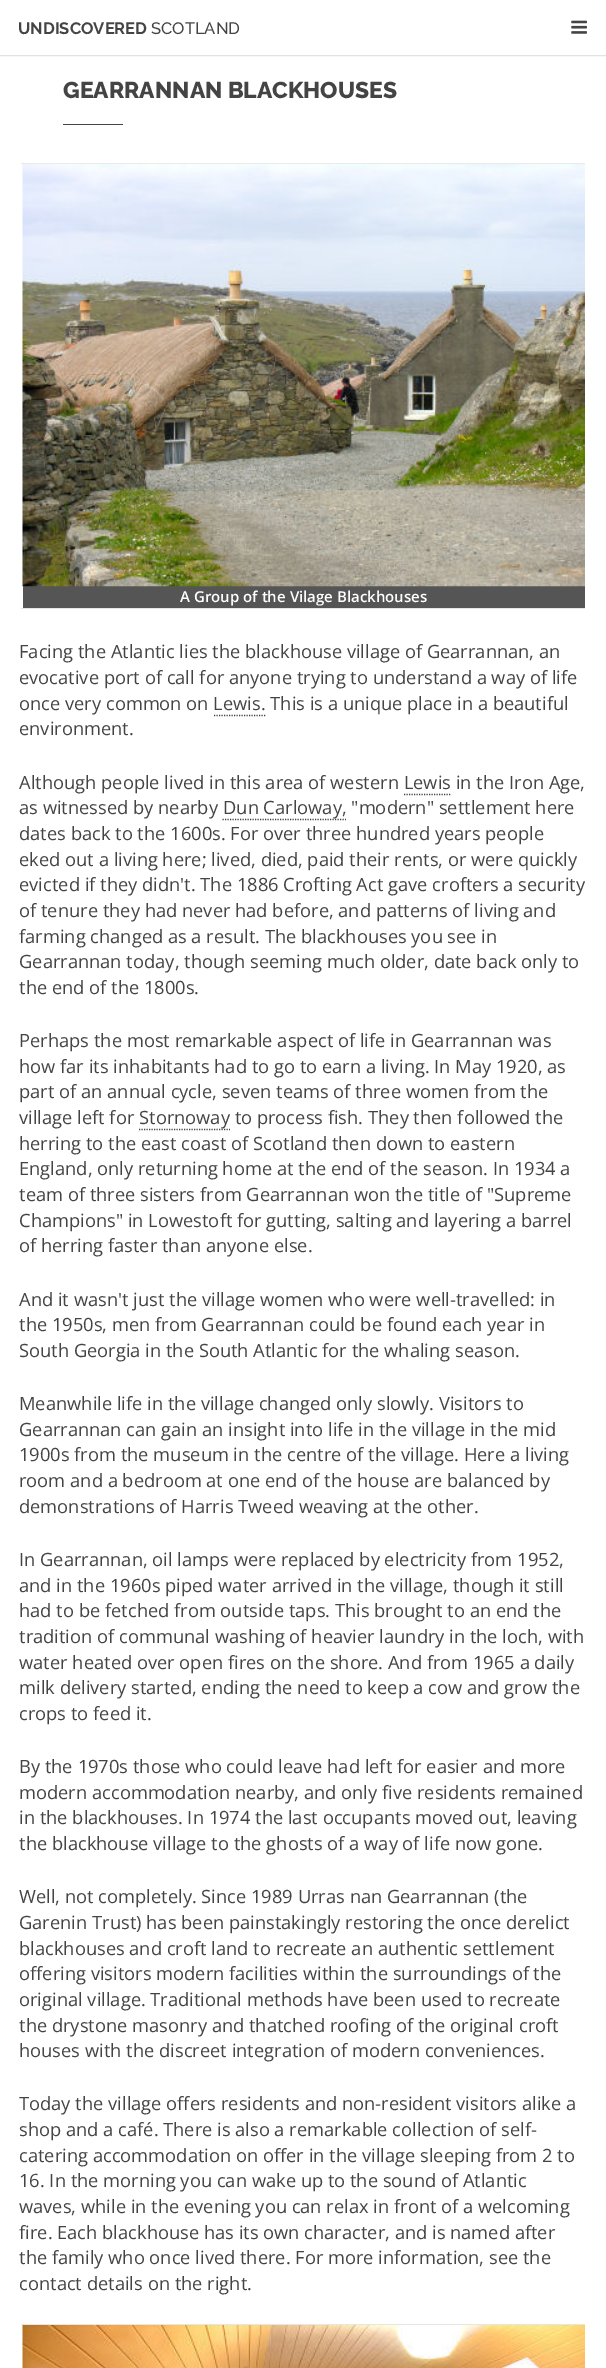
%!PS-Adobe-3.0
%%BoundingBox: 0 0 606 2368
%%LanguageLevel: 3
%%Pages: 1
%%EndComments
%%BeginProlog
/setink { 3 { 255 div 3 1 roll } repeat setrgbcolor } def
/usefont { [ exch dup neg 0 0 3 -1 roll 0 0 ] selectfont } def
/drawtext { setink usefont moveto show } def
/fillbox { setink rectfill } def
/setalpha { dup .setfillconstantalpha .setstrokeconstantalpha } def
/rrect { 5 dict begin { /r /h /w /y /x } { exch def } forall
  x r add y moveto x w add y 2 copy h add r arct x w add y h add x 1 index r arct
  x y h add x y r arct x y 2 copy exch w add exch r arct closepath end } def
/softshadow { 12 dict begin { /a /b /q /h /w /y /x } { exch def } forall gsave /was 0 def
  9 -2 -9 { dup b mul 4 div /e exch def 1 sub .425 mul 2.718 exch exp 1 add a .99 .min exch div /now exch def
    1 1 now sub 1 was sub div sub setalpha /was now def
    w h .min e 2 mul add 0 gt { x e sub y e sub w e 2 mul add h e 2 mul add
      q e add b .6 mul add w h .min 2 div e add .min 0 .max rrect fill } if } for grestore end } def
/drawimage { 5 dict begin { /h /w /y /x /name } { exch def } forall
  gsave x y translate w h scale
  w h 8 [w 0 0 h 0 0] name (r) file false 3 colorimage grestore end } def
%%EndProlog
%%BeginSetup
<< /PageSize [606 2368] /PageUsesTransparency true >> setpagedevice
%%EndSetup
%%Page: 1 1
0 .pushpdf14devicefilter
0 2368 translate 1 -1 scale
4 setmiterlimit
0 0 606 2368 255 255 255 fillbox
gsave
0 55 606 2 rectclip
0 0 0 setink
0 0 606 55 0 1 0.35 softshadow
grestore
(UNDISCOVERED) 18 34 /Raleway-Bold 16.5 68 68 68 drawtext
(SCOTLAND) 151 34 /Raleway-Medium 16.5 68 68 68 drawtext
(assets/img1.rgb) 571 20 16 14 drawimage
(GEARRANNAN BLACKHOUSES) 63 98 /Raleway-ExtraBold 22.9 68 68 68 drawtext
63 124 60 1 68 68 68 fillbox
21 163 564 1 230 230 230 fillbox
21 608 564 1 230 230 230 fillbox
23 586 562 22 85 85 85 fillbox
(assets/img2.rgb) 22 163 563 424 drawimage
(A Group of the Vilage Blackhouses) 180 602 /OpenSans-SemiBold 15 255 255 255 drawtext
(Facing the Atlantic lies the blackhouse village of Gearrannan, an) 19 658 /OpenSans-Regular 18.3 68 68 68 drawtext
(evocative port of call for anyone trying to understand a way of life) 19 684 /OpenSans-Regular 18.3 68 68 68 drawtext
(once very common on Lewis. This is a unique place in a beautiful) 19 710 /OpenSans-Regular 18.3 68 68 68 drawtext
1.2 setlinewidth
[1.25 1.25] 0 setdash
214 715.5 moveto 266 715.5 lineto stroke
(environment.) 19 735 /OpenSans-Regular 18.3 68 68 68 drawtext
(Although people lived in this area of western Lewis in the Iron Age,) 19 789 /OpenSans-Regular 18.3 68 68 68 drawtext
404 794.5 moveto 451 794.5 lineto stroke
(as witnessed by nearby) 19 814 /OpenSans-Regular 18.3 68 68 68 drawtext
222.5 819.5 moveto 346 819.5 lineto stroke
(Dun Carloway, "modern" settlement here) 223 814 /OpenSans-Regular 18.3 68 68 68 drawtext
(dates back to the 1600s. For over three hundred years people) 19 840 /OpenSans-Regular 18.3 68 68 68 drawtext
(eked out a living here; lived, died, paid their rents, or were quickly) 19 866 /OpenSans-Regular 18.3 68 68 68 drawtext
(evicted if they didn't. The 1886 Crofting Act gave crofters a security) 19 891 /OpenSans-Regular 18.3 68 68 68 drawtext
(of tenure they had never had before, and patterns of living and) 19 917 /OpenSans-Regular 18.3 68 68 68 drawtext
(farming changed as a result. The blackhouses you see in) 19 943 /OpenSans-Regular 18.3 68 68 68 drawtext
(Gearrannan today, though seeming much older, date back only to) 19 968 /OpenSans-Regular 18.3 68 68 68 drawtext
(the end of the 1800s.) 19 994 /OpenSans-Regular 18.3 68 68 68 drawtext
(Perhaps the most remarkable aspect of life in Gearrannan was) 19 1047 /OpenSans-Regular 18.3 68 68 68 drawtext
(how far its inhabitants had to go to earn a living. In May 1920, as) 19 1073 /OpenSans-Regular 18.3 68 68 68 drawtext
(part of an annual cycle, seven teams of three women from the) 19 1098 /OpenSans-Regular 18.3 68 68 68 drawtext
(village left for) 19 1124 /OpenSans-Regular 18.3 68 68 68 drawtext
139 1129.5 moveto 230 1129.5 lineto stroke
(Stornoway to process fish. They then followed the) 139 1124 /OpenSans-Regular 18.3 68 68 68 drawtext
(herring to the east coast of Scotland then down to eastern) 19 1150 /OpenSans-Regular 18.3 68 68 68 drawtext
(England, only returning home at the end of the season. In 1934 a) 19 1175 /OpenSans-Regular 18.3 68 68 68 drawtext
(team of three sisters from Gearrannan won the title of "Supreme) 19 1201 /OpenSans-Regular 18.3 68 68 68 drawtext
(Champions" in Lowestoft for gutting, salting and layering a barrel) 19 1227 /OpenSans-Regular 18.3 68 68 68 drawtext
(of herring faster than anyone else.) 19 1252 /OpenSans-Regular 18.3 68 68 68 drawtext
(And it wasn't just the village women who were well-travelled: in) 19 1306 /OpenSans-Regular 18.3 68 68 68 drawtext
(the 1950s, men from Gearrannan could be found each year in) 19 1331 /OpenSans-Regular 18.3 68 68 68 drawtext
(South Georgia in the South Atlantic for the whaling season.) 19 1357 /OpenSans-Regular 18.3 68 68 68 drawtext
(Meanwhile life in the village changed only slowly. Visitors to) 19 1410 /OpenSans-Regular 18.3 68 68 68 drawtext
(Gearrannan can gain an insight into life in the village in the mid) 19 1436 /OpenSans-Regular 18.3 68 68 68 drawtext
(1900s from the museum in the centre of the village. Here a living) 19 1461 /OpenSans-Regular 18.3 68 68 68 drawtext
(room and a bedroom at one end of the house are balanced by) 19 1487 /OpenSans-Regular 18.3 68 68 68 drawtext
(demonstrations of Harris Tweed weaving at the other.) 19 1513 /OpenSans-Regular 18.3 68 68 68 drawtext
(In Gearrannan, oil lamps were replaced by electricity from 1952,) 19 1566 /OpenSans-Regular 18.3 68 68 68 drawtext
(and in the 1960s piped water arrived in the village, though it still) 19 1592 /OpenSans-Regular 18.3 68 68 68 drawtext
(had to be fetched from outside taps. This brought to an end the) 19 1617 /OpenSans-Regular 18.3 68 68 68 drawtext
(tradition of communal washing of heavier laundry in the loch, with) 19 1643 /OpenSans-Regular 18.3 68 68 68 drawtext
(water heated over open fires on the shore. And from 1965 a daily) 19 1669 /OpenSans-Regular 18.3 68 68 68 drawtext
(milk delivery started, ending the need to keep a cow and grow the) 19 1694 /OpenSans-Regular 18.3 68 68 68 drawtext
(crops to feed it.) 19 1720 /OpenSans-Regular 18.3 68 68 68 drawtext
(By the 1970s those who could leave had left for easier and more) 19 1773 /OpenSans-Regular 18.3 68 68 68 drawtext
(modern accommodation nearby, and only five residents remained) 19 1799 /OpenSans-Regular 18.3 68 68 68 drawtext
(in the blackhouses. In 1974 the last occupants moved out, leaving) 19 1824 /OpenSans-Regular 18.3 68 68 68 drawtext
(the blackhouse village to the ghosts of a way of life now gone.) 19 1850 /OpenSans-Regular 18.3 68 68 68 drawtext
(Well, not completely. Since 1989 Urras nan Gearrannan \(the) 19 1903 /OpenSans-Regular 18.3 68 68 68 drawtext
(Garenin Trust\) has been painstakingly restoring the once derelict) 19 1929 /OpenSans-Regular 18.3 68 68 68 drawtext
(blackhouses and croft land to recreate an authentic settlement) 19 1955 /OpenSans-Regular 18.3 68 68 68 drawtext
(offering visitors modern facilities within the surroundings of the) 19 1980 /OpenSans-Regular 18.3 68 68 68 drawtext
(original village. Traditional methods have been) 19 2006 /OpenSans-Regular 18.3 68 68 68 drawtext
(used to recreate) 421 2006 /OpenSans-Regular 18.3 68 68 68 drawtext
(the drystone masonry and thatched roofing of the original) 19 2032 /OpenSans-Regular 18.3 68 68 68 drawtext
(croft) 519 2032 /OpenSans-Regular 18.3 68 68 68 drawtext
(houses with the discreet integration of modern conveniences.) 19 2057 /OpenSans-Regular 18.3 68 68 68 drawtext
(Today the village offers residents and non-resident visitors alike a) 19 2110 /OpenSans-Regular 18.3 68 68 68 drawtext
(shop and a café. There is also a remarkable collection of) 19 2136 /OpenSans-Regular 18.3 68 68 68 drawtext
(self-) 501 2136 /OpenSans-Regular 18.3 68 68 68 drawtext
(catering accommodation on offer in the village sleeping from 2 to) 19 2162 /OpenSans-Regular 18.3 68 68 68 drawtext
(16. In the morning you can wake up to the sound of Atlantic) 19 2187 /OpenSans-Regular 18.3 68 68 68 drawtext
(waves, while in the evening you can relax in front of) 19 2213 /OpenSans-Regular 18.3 68 68 68 drawtext
(a welcoming) 463 2213 /OpenSans-Regular 18.3 68 68 68 drawtext
(fire. Each blackhouse has its own character, and is named after) 19 2239 /OpenSans-Regular 18.3 68 68 68 drawtext
(the family who once lived there. For more information, see the) 19 2264 /OpenSans-Regular 18.3 68 68 68 drawtext
(contact details on the right.) 19 2290 /OpenSans-Regular 18.3 68 68 68 drawtext
21 2324 564 1 230 230 230 fillbox
(assets/img3.rgb) 22 2325 563 43 drawimage
.poppdf14devicefilter showpage
%%EOF
